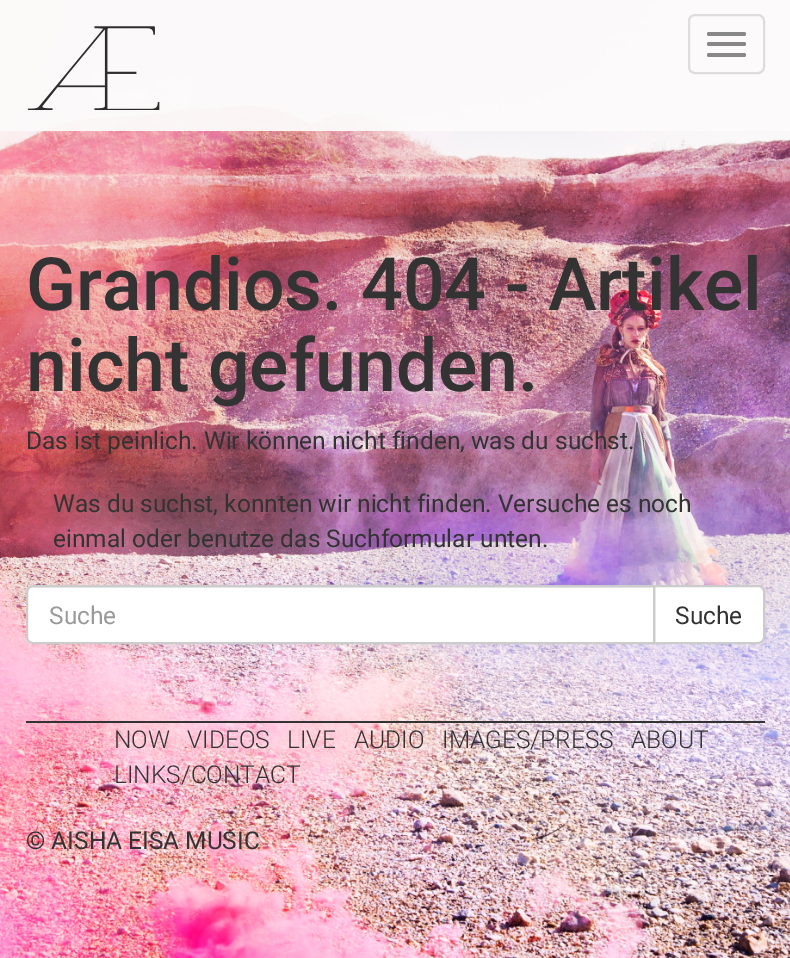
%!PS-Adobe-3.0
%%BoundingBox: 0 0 790 958
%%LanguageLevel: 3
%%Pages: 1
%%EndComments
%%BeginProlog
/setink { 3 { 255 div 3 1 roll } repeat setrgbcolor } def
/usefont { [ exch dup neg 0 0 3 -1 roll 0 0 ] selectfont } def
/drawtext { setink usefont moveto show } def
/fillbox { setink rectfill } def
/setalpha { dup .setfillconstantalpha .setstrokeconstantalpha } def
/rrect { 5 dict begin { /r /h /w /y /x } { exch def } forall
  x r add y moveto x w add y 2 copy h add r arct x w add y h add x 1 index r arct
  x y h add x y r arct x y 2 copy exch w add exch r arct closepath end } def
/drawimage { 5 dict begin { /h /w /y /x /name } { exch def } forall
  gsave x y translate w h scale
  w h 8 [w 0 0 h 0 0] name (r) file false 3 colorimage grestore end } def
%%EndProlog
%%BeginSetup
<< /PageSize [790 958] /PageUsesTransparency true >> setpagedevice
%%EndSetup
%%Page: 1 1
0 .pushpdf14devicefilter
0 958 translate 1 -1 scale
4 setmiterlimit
0 0 790 958 255 255 255 fillbox
(assets/img1.rgb) 0 0 790 958 drawimage
0.95 setalpha
0 0 790 131 252 250 250 fillbox
1 setalpha
(assets/img2.rgb) 27 26 133 84 drawimage
221 221 221 setink
2 setlinewidth
689 15 75 58 6 rrect stroke
136 136 136 setink
707 32 39 4 2 rrect fill
707 42 39 4 2 rrect fill
707 53 39 4 2 rrect fill
(Grandios. 404 - Artikel) 26 310 /Roboto-Medium 73.5 51 51 51 drawtext
(nicht gefunden.) 26 391 /Roboto-Medium 73.5 51 51 51 drawtext
(Das ist peinlich. Wir können nicht finden, was du suchst.) 26 449 /Roboto-Regular 24.5 51 51 51 drawtext
(Was du suchst, konnten wir nicht finden. Versuche es noch) 53 512 /Roboto-Regular 24.5 51 51 51 drawtext
(einmal oder benutze das Suchformular unten.) 53 547 /Roboto-Regular 24.5 51 51 51 drawtext
255 255 255 setink
654 586 moveto 758 586 lineto 761.5 586 764 588.5 764 592 curveto 764 637 lineto 764 640.5 761.5 643 758 643 curveto 654 643 lineto closepath gsave fill grestore
204 204 204 setink
stroke
255 255 255 setink
33 585 moveto 655 585 lineto 655 644 lineto 33 644 lineto 29 644 26 641 26 637 curveto 26 592 lineto 26 588 29 585 33 585 curveto closepath fill
236 236 236 setink
33 588 moveto 653 588 lineto 653 586 lineto 33 586 lineto 29 586 28 590 28 593 curveto 28 590 30 588 33 588 curveto closepath fill
204 204 204 setink
33 586 moveto 654 586 lineto 654 643 lineto 33 643 lineto 29.5 643 27 640.5 27 637 curveto 27 592 lineto 27 588.5 29.5 586 33 586 curveto closepath stroke
(Suche) 49 624 /Roboto-Regular 24.5 153 153 153 drawtext
(Suche) 675 624 /Roboto-Regular 24.5 51 51 51 drawtext
26 721 739 2 51 51 51 fillbox
(NOW) 114 748 /Roboto-Light 24.5 51 51 51 drawtext
(VIDEOS) 187 748 /Roboto-Light 24.5 51 51 51 drawtext
(LIVE) 287 748 /Roboto-Light 24.5 51 51 51 drawtext
(AUDIO) 354 748 /Roboto-Light 24.5 51 51 51 drawtext
(IMAGES/PRESS) 442 748 /Roboto-Light 24.5 51 51 51 drawtext
(ABOUT) 631 748 /Roboto-Light 24.5 51 51 51 drawtext
(LINKS/CONTACT) 114 783 /Roboto-Light 24.5 51 51 51 drawtext
(© AISHA EISA MUSIC) 26 849 /Roboto-Regular 24.5 51 51 51 drawtext
.poppdf14devicefilter showpage
%%EOF
